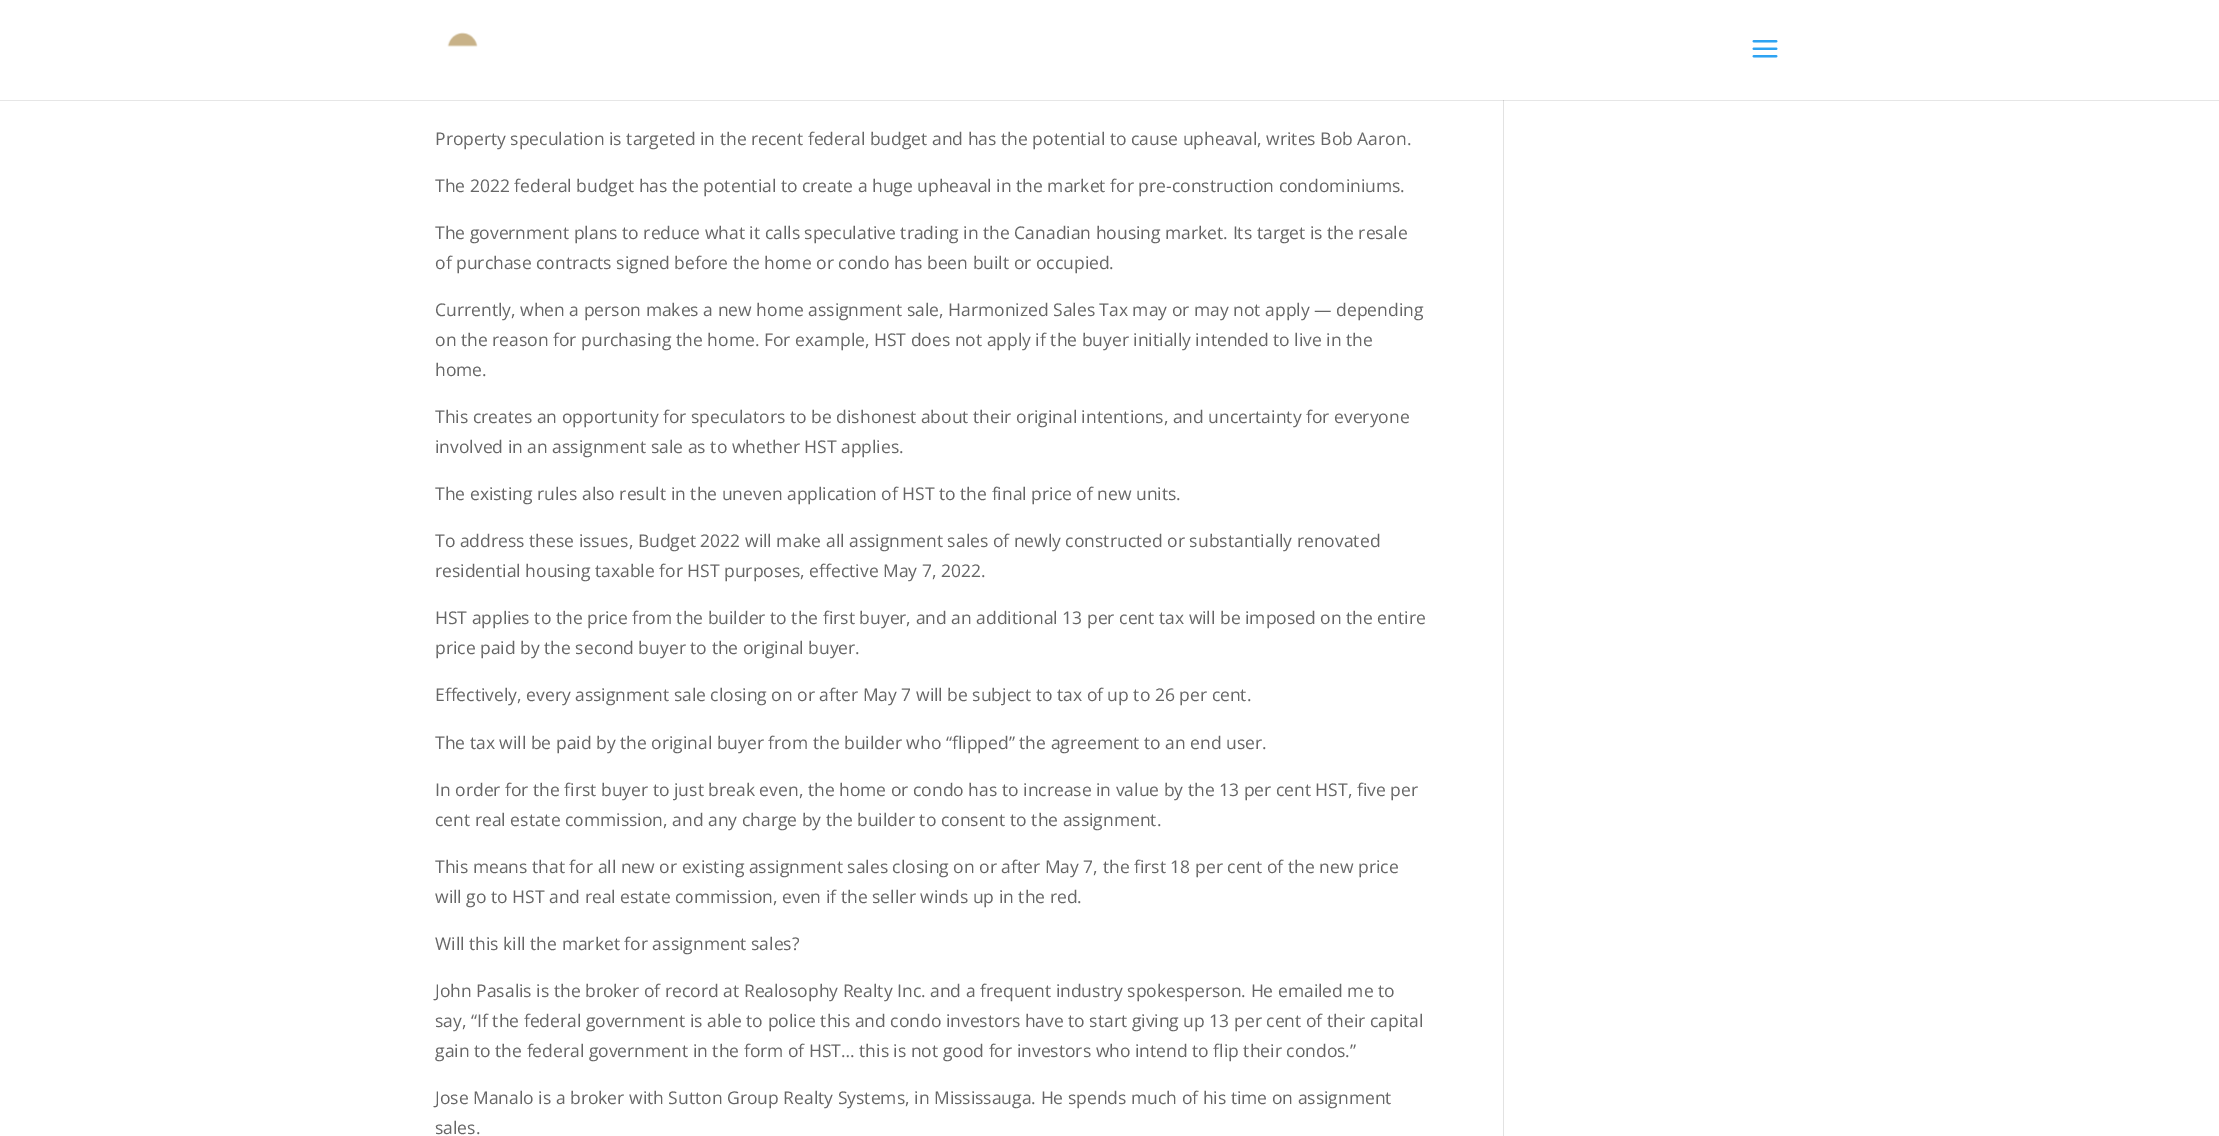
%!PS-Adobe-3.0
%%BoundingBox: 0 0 2219 1136
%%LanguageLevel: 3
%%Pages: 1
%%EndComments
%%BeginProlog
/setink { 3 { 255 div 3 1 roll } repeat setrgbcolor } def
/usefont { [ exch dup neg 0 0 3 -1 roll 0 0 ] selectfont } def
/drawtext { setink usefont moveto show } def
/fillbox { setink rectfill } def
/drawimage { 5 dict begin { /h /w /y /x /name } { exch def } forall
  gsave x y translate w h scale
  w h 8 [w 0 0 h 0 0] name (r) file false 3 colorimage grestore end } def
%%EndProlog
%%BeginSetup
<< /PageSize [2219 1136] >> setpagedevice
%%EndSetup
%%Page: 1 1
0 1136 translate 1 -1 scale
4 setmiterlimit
0 0 2219 1136 255 255 255 fillbox
0 100 2219 1 230 230 230 fillbox
(assets/img1.rgb) 447 32 31 15 drawimage
(assets/img2.rgb) 1752 40 26 18 drawimage
(Property speculation is targeted in the recent federal budget and has the potential to cause upheaval, writes Bob Aaron.) 435 145 /OpenSans-Regular 17.5 102 102 102 drawtext
(The 2022 federal budget has the potential to create a huge upheaval in the market for pre-construction condominiums.) 435 192 /OpenSans-Regular 17.5 102 102 102 drawtext
(The government plans to reduce what it calls speculative trading in the Canadian housing market. Its target is the resale) 435 239 /OpenSans-Regular 17.5 102 102 102 drawtext
(of purchase contracts signed before the home or condo has been built or occupied.) 435 269 /OpenSans-Regular 17.5 102 102 102 drawtext
(Currently, when a person makes a new home assignment sale, Harmonized Sales Tax may or may not apply — depending) 435 316 /OpenSans-Regular 17.5 102 102 102 drawtext
(on the reason for purchasing the home. For example, HST does not apply if the buyer initially intended to live in the) 435 346 /OpenSans-Regular 17.5 102 102 102 drawtext
(home.) 435 376 /OpenSans-Regular 17.5 102 102 102 drawtext
(This creates an opportunity for speculators to be dishonest about their original intentions, and uncertainty for everyone) 435 423 /OpenSans-Regular 17.5 102 102 102 drawtext
(involved in an assignment sale as to whether HST applies.) 435 453 /OpenSans-Regular 17.5 102 102 102 drawtext
(The existing rules also result in the uneven application of HST to the final price of new units.) 435 500 /OpenSans-Regular 17.5 102 102 102 drawtext
(To address these issues, Budget 2022 will make all assignment sales of newly constructed or substantially renovated) 435 547 /OpenSans-Regular 17.5 102 102 102 drawtext
(residential housing taxable for HST purposes, effective May 7, 2022.) 435 577 /OpenSans-Regular 17.5 102 102 102 drawtext
(HST applies to the price from the builder to the first buyer, and an additional 13 per cent tax will be imposed on the entire) 435 624 /OpenSans-Regular 17.5 102 102 102 drawtext
(price paid by the second buyer to the original buyer.) 435 654 /OpenSans-Regular 17.5 102 102 102 drawtext
(Effectively, every assignment sale closing on or after May 7 will be subject to tax of up to 26 per cent.) 435 701 /OpenSans-Regular 17.5 102 102 102 drawtext
(The tax will be paid by the original buyer from the builder who “flipped” the agreement to an end user.) 435 749 /OpenSans-Regular 17.5 102 102 102 drawtext
(In order for the first buyer to just break even, the home or condo has to increase in value by the 13 per cent HST, five per) 435 796 /OpenSans-Regular 17.5 102 102 102 drawtext
(cent real estate commission, and any charge by the builder to consent to the assignment.) 435 826 /OpenSans-Regular 17.5 102 102 102 drawtext
(This means that for all new or existing assignment sales closing on or after May 7, the first 18 per cent of the new price) 435 873 /OpenSans-Regular 17.5 102 102 102 drawtext
(will go to HST and real estate commission, even if the seller winds up in the red.) 435 903 /OpenSans-Regular 17.5 102 102 102 drawtext
(Will this kill the market for assignment sales?) 435 950 /OpenSans-Regular 17.5 102 102 102 drawtext
(John Pasalis is the broker of record at Realosophy Realty Inc. and a frequent industry spokesperson. He emailed me to) 435 997 /OpenSans-Regular 17.5 102 102 102 drawtext
(say, “If the federal government is able to police this and condo investors have to start giving up 13 per cent of their capital) 435 1027 /OpenSans-Regular 17.5 102 102 102 drawtext
(gain to the federal government in the form of HST… this is not good for investors who intend to flip their condos.”) 435 1057 /OpenSans-Regular 17.5 102 102 102 drawtext
(Jose Manalo is a broker with Sutton Group Realty Systems, in Mississauga. He spends much of his time on assignment) 435 1104 /OpenSans-Regular 17.5 102 102 102 drawtext
(sales.) 435 1134 /OpenSans-Regular 17.5 102 102 102 drawtext
1503 101 1 1035 226 226 226 fillbox
1503 100 1 1 203 203 203 fillbox
showpage
%%EOF
